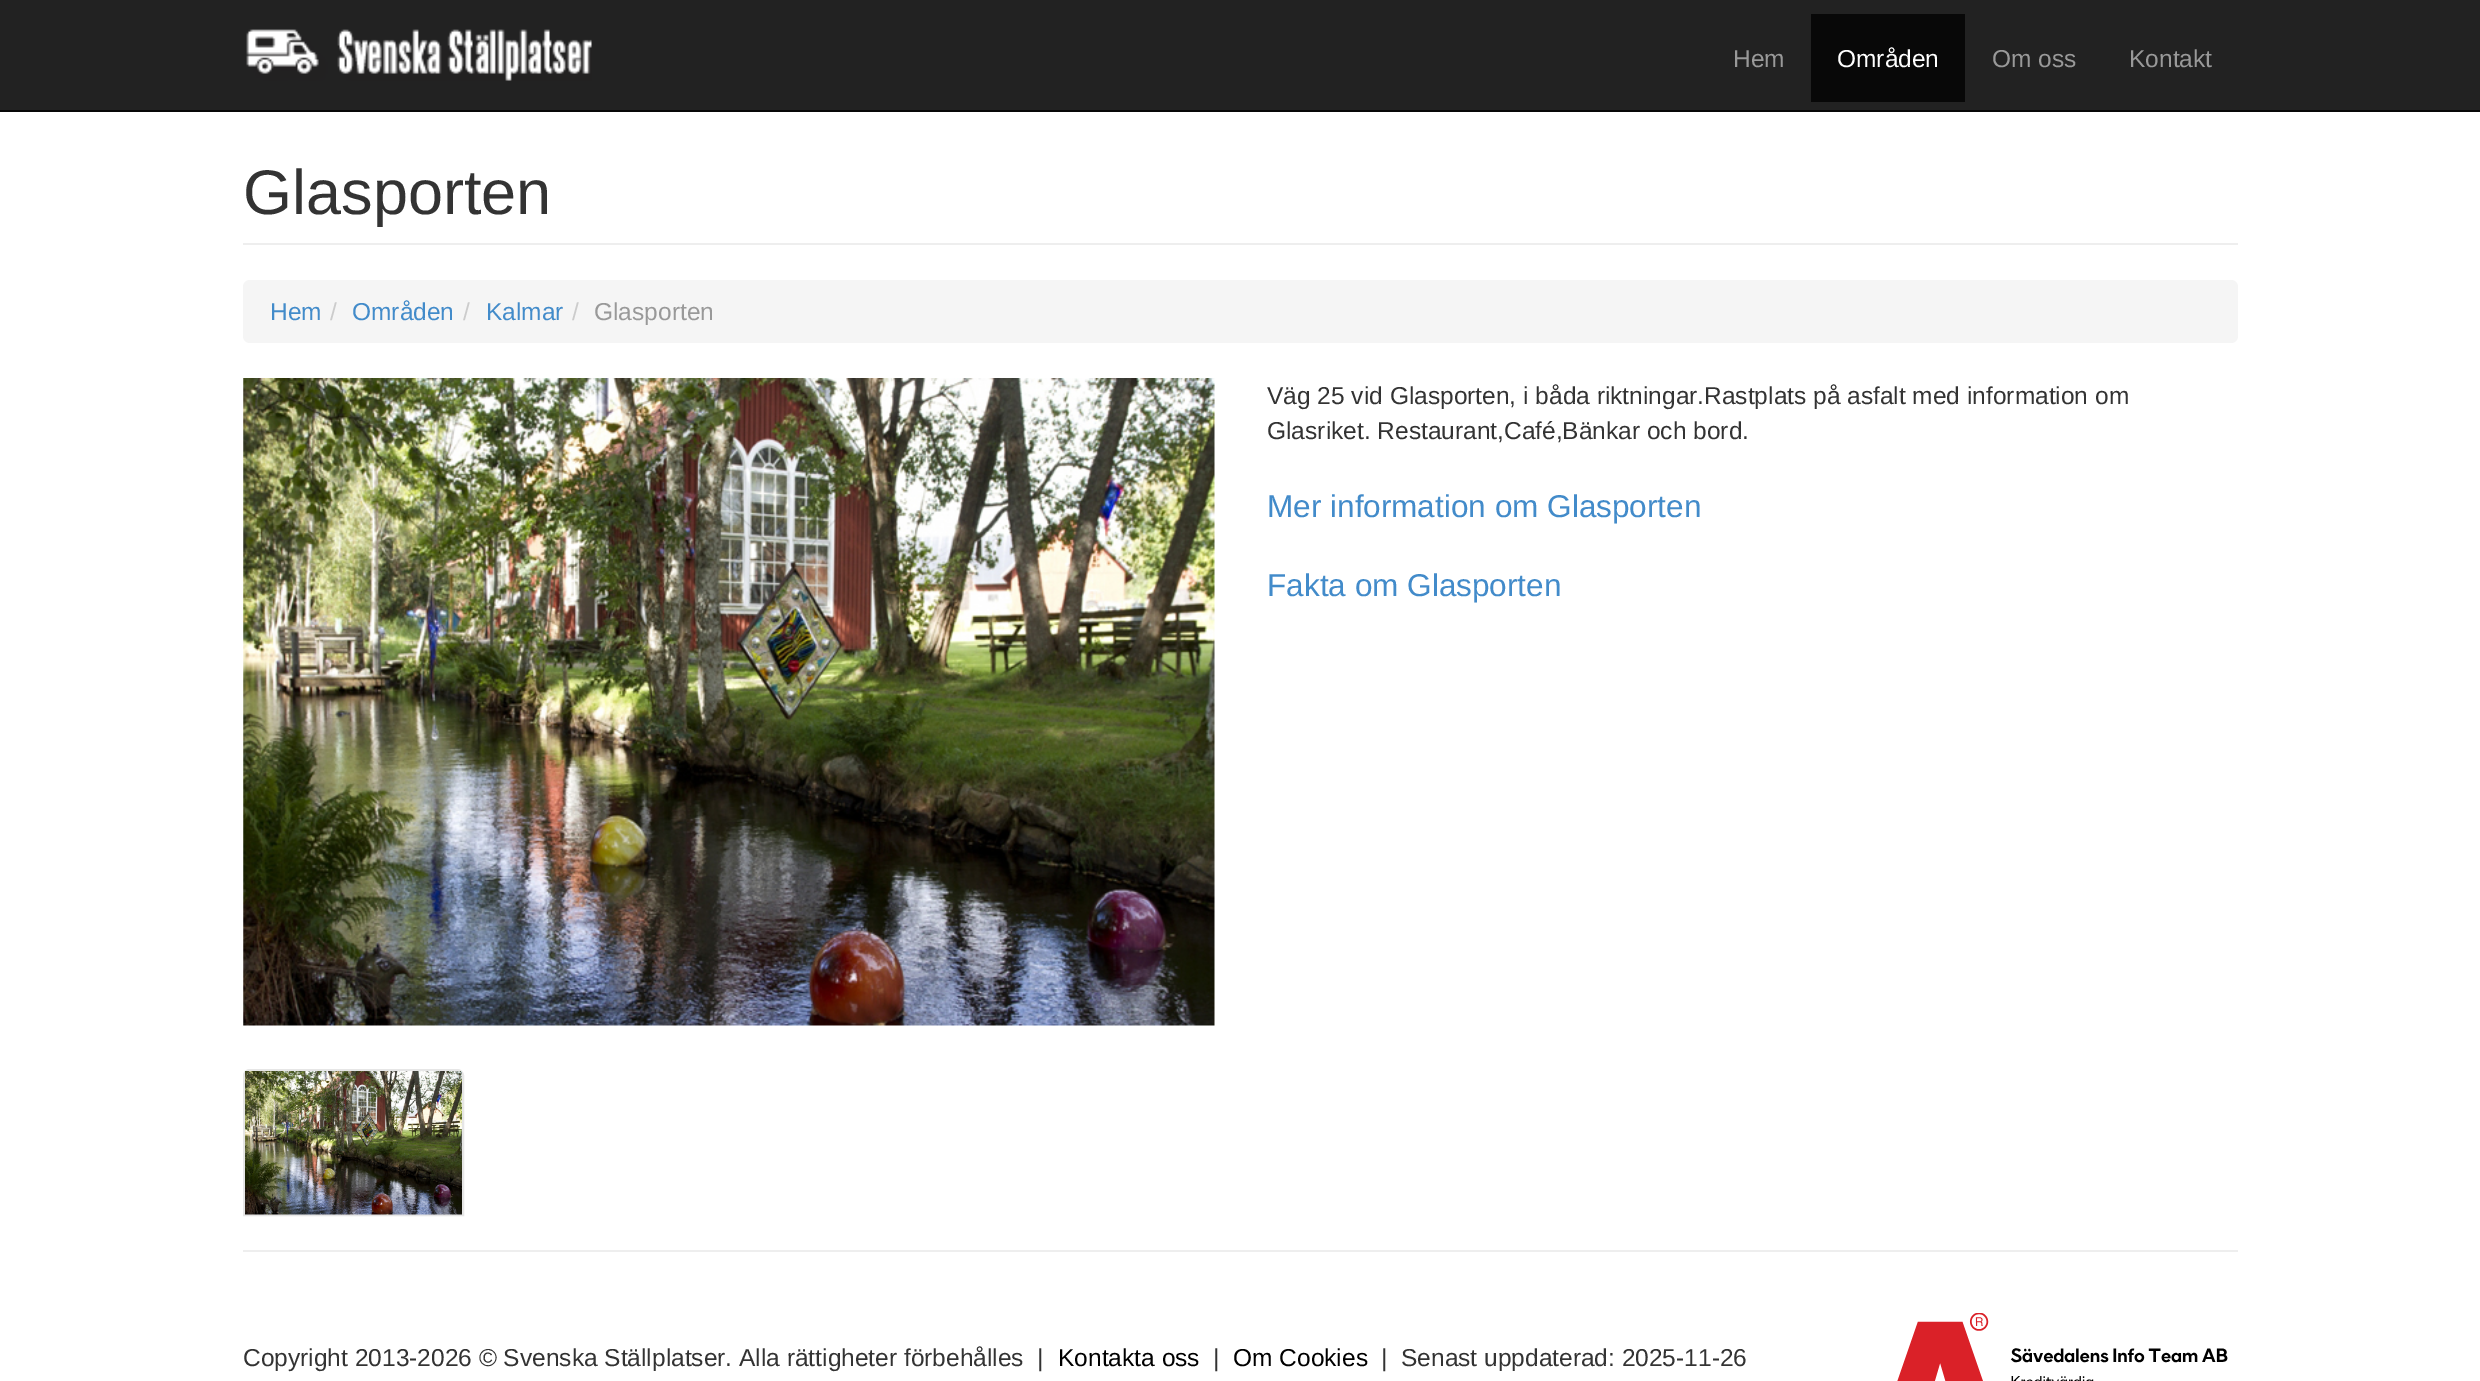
%!PS-Adobe-3.0
%%BoundingBox: 0 0 2480 1381
%%LanguageLevel: 3
%%Pages: 1
%%EndComments
%%BeginProlog
/setink { 3 { 255 div 3 1 roll } repeat setrgbcolor } def
/usefont { [ exch dup neg 0 0 3 -1 roll 0 0 ] selectfont } def
/drawtext { setink usefont moveto show } def
/fillbox { setink rectfill } def
/rrect { 5 dict begin { /r /h /w /y /x } { exch def } forall
  x r add y moveto x w add y 2 copy h add r arct x w add y h add x 1 index r arct
  x y h add x y r arct x y 2 copy exch w add exch r arct closepath end } def
/drawimage { 5 dict begin { /h /w /y /x /name } { exch def } forall
  gsave x y translate w h scale
  w h 8 [w 0 0 h 0 0] name (r) file false 3 colorimage grestore end } def
%%EndProlog
%%BeginSetup
<< /PageSize [2480 1381] >> setpagedevice
%%EndSetup
%%Page: 1 1
0 1381 translate 1 -1 scale
4 setmiterlimit
0 0 2480 1381 255 255 255 fillbox
0 0 2480 110 34 34 34 fillbox
0 110 2480 2 8 8 8 fillbox
(assets/img1.rgb) 246 29 346 52 drawimage
(Hem) 1733 67 /LiberationSans-Regular 24.5 153 153 153 drawtext
1811 14 154 88 8 8 8 fillbox
(Områden) 1837 67 /LiberationSans-Regular 24.5 255 255 255 drawtext
(Om oss) 1992 67 /LiberationSans-Regular 24.5 153 153 153 drawtext
(Kontakt) 2129 67 /LiberationSans-Regular 24.5 153 153 153 drawtext
243 243 1995 2 238 238 238 fillbox
(Glasporten) 243 214 /LiberationSans-Regular 63 51 51 51 drawtext
245 245 245 setink
243 280 1995 63 7 rrect fill
(Hem) 270 320 /LiberationSans-Regular 24.5 66 139 202 drawtext
(/) 330 320 /LiberationSans-Regular 24.5 204 204 204 drawtext
(Områden) 352 320 /LiberationSans-Regular 24.5 66 139 202 drawtext
(/) 463 320 /LiberationSans-Regular 24.5 204 204 204 drawtext
(Kalmar) 486 320 /LiberationSans-Regular 24.5 66 139 202 drawtext
(/) 572 320 /LiberationSans-Regular 24.5 204 204 204 drawtext
(Glasporten) 594 320 /LiberationSans-Regular 24.5 153 153 153 drawtext
(assets/img2.rgb) 243 378 972 648 drawimage
230 230 230 setink
2 setlinewidth
250 1070 moveto 457 1070 lineto 460.5 1070 463 1072.5 463 1076 curveto 463 1215 lineto 244 1215 lineto 244 1076 lineto 244 1072.5 246.5 1070 250 1070 curveto closepath stroke
(assets/img3.rgb) 245 1071 217 144 drawimage
(Väg 25 vid Glasporten, i båda riktningar.Rastplats på asfalt med information om) 1267 404 /LiberationSans-Regular 24.5 51 51 51 drawtext
(Glasriket. Restaurant,Café,Bänkar och bord.) 1267 439 /LiberationSans-Regular 24.5 51 51 51 drawtext
(Mer information om Glasporten) 1267 517 /LiberationSans-Regular 31.5 66 139 202 drawtext
(Fakta om Glasporten) 1267 596 /LiberationSans-Regular 31.5 66 139 202 drawtext
243 1250 1995 2 238 238 238 fillbox
(Copyright 2013-2026 © Svenska Ställplatser. Alla rättigheter förbehålles  |) 243 1366 /LiberationSans-Regular 24.5 51 51 51 drawtext
(Kontakta oss) 1058 1366 /LiberationSans-Regular 24.5 0 0 0 drawtext
(|) 1213 1366 /LiberationSans-Regular 24.5 51 51 51 drawtext
(Om Cookies) 1233 1366 /LiberationSans-Regular 24.5 0 0 0 drawtext
(|  Senast uppdaterad: 2025-11-26) 1381 1366 /LiberationSans-Regular 24.5 51 51 51 drawtext
(assets/img4.rgb) 1897 1313 331 68 drawimage
showpage
%%EOF
